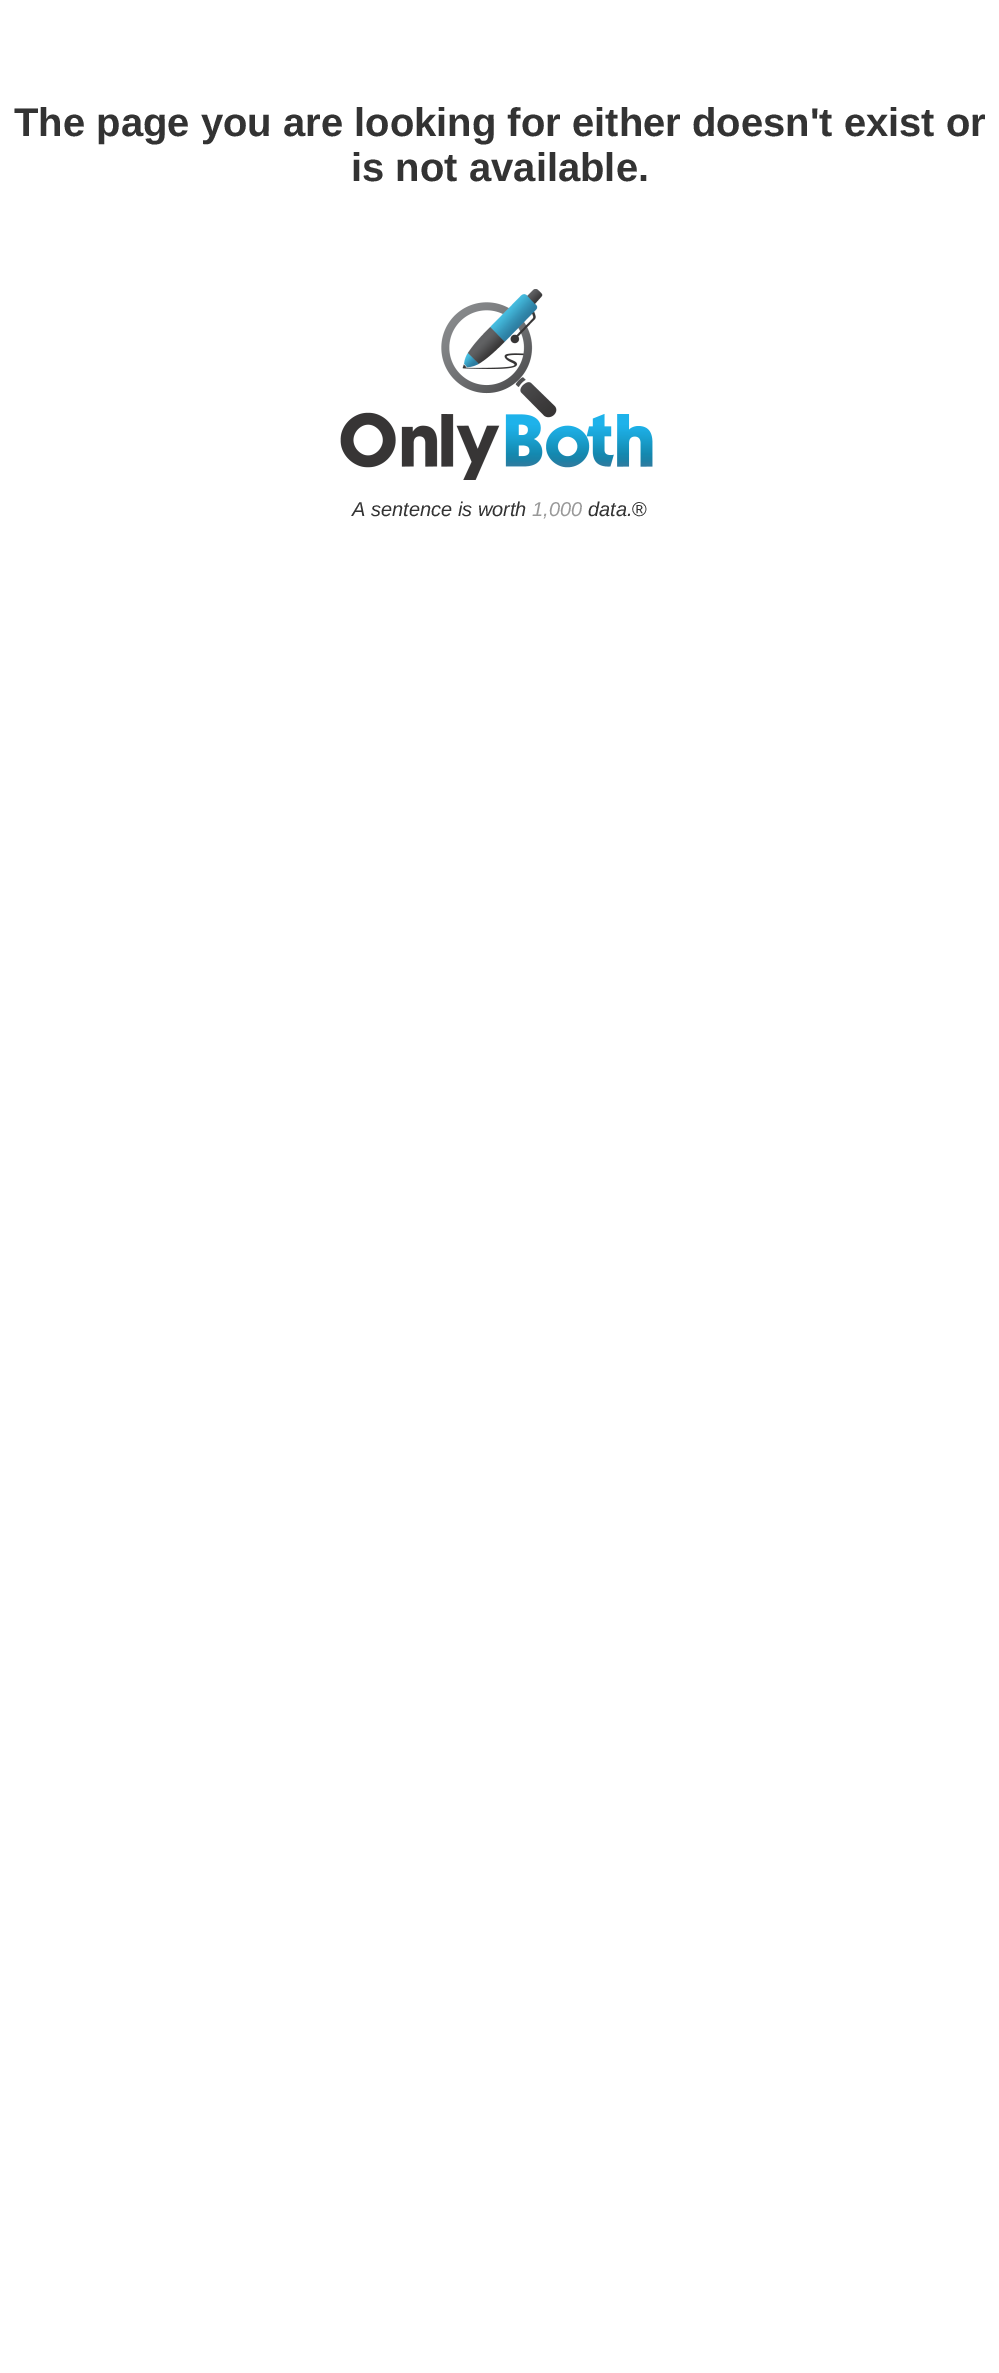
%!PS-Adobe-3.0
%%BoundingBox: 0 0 999 2373
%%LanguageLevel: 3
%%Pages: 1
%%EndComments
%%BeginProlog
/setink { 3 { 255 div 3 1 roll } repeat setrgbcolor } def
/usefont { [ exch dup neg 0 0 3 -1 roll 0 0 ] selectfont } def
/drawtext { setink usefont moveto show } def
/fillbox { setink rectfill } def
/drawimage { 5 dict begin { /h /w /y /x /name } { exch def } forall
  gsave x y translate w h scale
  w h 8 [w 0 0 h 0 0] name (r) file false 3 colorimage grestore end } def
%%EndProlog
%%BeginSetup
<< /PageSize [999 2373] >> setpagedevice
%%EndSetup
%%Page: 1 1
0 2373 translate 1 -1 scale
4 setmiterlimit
0 0 999 2373 255 255 255 fillbox
(The page you are looking for either doesn't exist or) 14 136 /LiberationSans-Bold 40 51 51 51 drawtext
(is not available.) 351 181 /LiberationSans-Bold 40 51 51 51 drawtext
(assets/img1.rgb) 340 289 313 191 drawimage
(A sentence is worth) 352 516 /LiberationSans-Italic 20 51 51 51 drawtext
(1,000) 532 516 /LiberationSans-Italic 20 153 153 153 drawtext
(data.) 588 516 /LiberationSans-Italic 20 51 51 51 drawtext
(®) 632 516 /LiberationSans-Regular 20 51 51 51 drawtext
showpage
%%EOF
